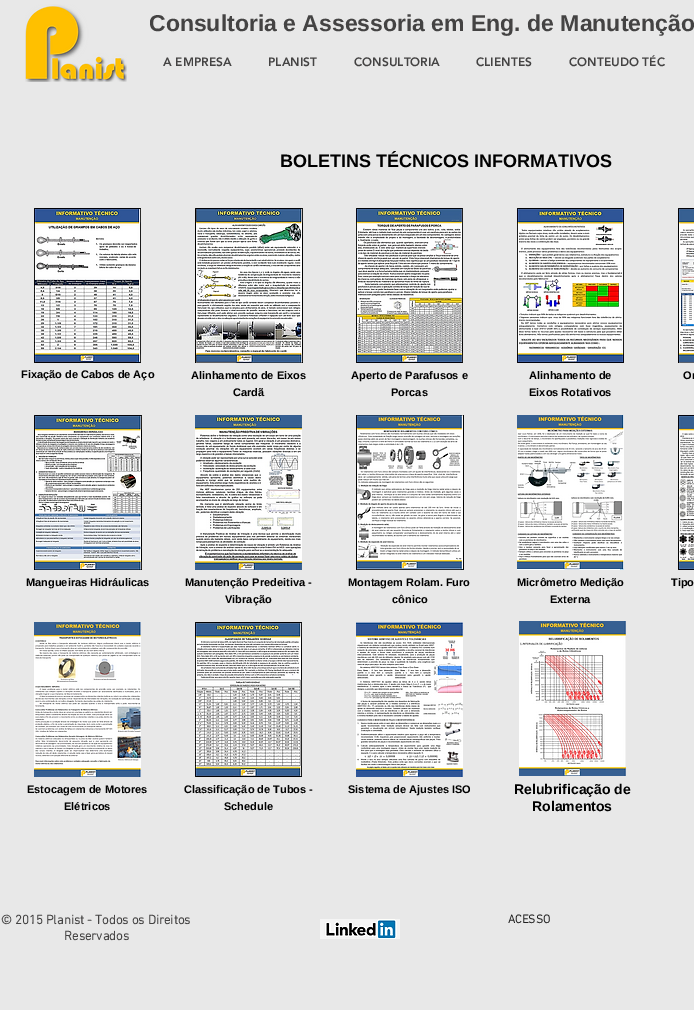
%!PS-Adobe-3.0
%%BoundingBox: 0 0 694 1010
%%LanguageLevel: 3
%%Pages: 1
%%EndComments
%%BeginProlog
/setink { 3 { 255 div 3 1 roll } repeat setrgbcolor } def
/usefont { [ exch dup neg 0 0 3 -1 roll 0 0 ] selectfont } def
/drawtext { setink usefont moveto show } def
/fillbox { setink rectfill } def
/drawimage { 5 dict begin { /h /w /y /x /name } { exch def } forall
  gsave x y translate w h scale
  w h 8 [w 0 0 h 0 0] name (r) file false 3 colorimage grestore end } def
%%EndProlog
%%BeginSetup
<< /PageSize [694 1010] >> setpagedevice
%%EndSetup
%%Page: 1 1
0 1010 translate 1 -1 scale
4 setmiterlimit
0 0 694 1010 232 232 232 fillbox
(assets/img1.rgb) 25 4 102 78 drawimage
(Consultoria e Assessoria em Eng. de Manutenção) 149 31 /LiberationSans-Bold 23 68 67 67 drawtext
(A EMPRESA) 163 66 /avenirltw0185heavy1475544-Black 12 68 67 67 drawtext
(PLANIST) 268 66 /avenirltw0185heavy1475544-Black 12 68 67 67 drawtext
(CONSULTORIA) 354 66 /avenirltw0185heavy1475544-Black 12 68 67 67 drawtext
(CLIENTES) 476 66 /avenirltw0185heavy1475544-Black 12 68 67 67 drawtext
(CONTEUDO TÉC) 569 66 /avenirltw0185heavy1475544-Black 12 68 67 67 drawtext
(BOLETINS TÉCNICOS INFORMATIVOS) 280 167 /LiberationSans-Bold 18 0 0 0 drawtext
(assets/img2.rgb) 34 208 107 155 drawimage
(Fixação de Cabos de Aço) 21 378 /LiberationSans-Bold 11 0 0 0 drawtext
(assets/img3.rgb) 34 415 108 155 drawimage
(Mangueiras Hidráulicas) 26 586 /LiberationSans-Bold 11 0 0 0 drawtext
(assets/img4.rgb) 34 622 107 155 drawimage
(Estocagem de Motores) 27 793 /LiberationSans-Bold 11 0 0 0 drawtext
(Elétricos) 64 810 /LiberationSans-Bold 11 0 0 0 drawtext
(assets/img5.rgb) 195 208 108 155 drawimage
(Alinhamento de Eixos) 191 379 /LiberationSans-Bold 11 0 0 0 drawtext
(Cardã) 233 396 /LiberationSans-Bold 11 0 0 0 drawtext
(assets/img6.rgb) 195 415 107 155 drawimage
(Manutenção Predeitiva -) 185 586 /LiberationSans-Bold 11 0 0 0 drawtext
(Vibração) 225 603 /LiberationSans-Bold 11 0 0 0 drawtext
(assets/img7.rgb) 195 622 107 155 drawimage
(Classificação de Tubos -) 184 793 /LiberationSans-Bold 11 0 0 0 drawtext
(Schedule) 224 810 /LiberationSans-Bold 11 0 0 0 drawtext
(assets/img8.rgb) 356 208 107 155 drawimage
(Aperto de Parafusos e) 351 379 /LiberationSans-Bold 11 0 0 0 drawtext
(Porcas) 391 396 /LiberationSans-Bold 11 0 0 0 drawtext
(assets/img9.rgb) 356 415 108 155 drawimage
(Montagem Rolam. Furo) 348 586 /LiberationSans-Bold 11 0 0 0 drawtext
(cônico) 392 603 /LiberationSans-Bold 11 0 0 0 drawtext
(assets/img10.rgb) 356 622 107 155 drawimage
(Sistema de Ajustes ISO) 348 793 /LiberationSans-Bold 11 0 0 0 drawtext
(assets/img11.rgb) 517 208 107 155 drawimage
(Alinhamento de) 529 379 /LiberationSans-Bold 11 0 0 0 drawtext
(Eixos Rotativos) 529 396 /LiberationSans-Bold 11 0 0 0 drawtext
(assets/img12.rgb) 517 415 107 155 drawimage
(Micrômetro Medição) 517 586 /LiberationSans-Bold 11 0 0 0 drawtext
(Externa) 550 603 /LiberationSans-Bold 11 0 0 0 drawtext
(assets/img13.rgb) 678 208 16 155 drawimage
(Or) 683 379 /LiberationSans-Bold 11 0 0 0 drawtext
(assets/img14.rgb) 678 415 16 155 drawimage
(Tipo) 671 586 /LiberationSans-Bold 11 0 0 0 drawtext
(assets/img15.rgb) 519 621 107 155 drawimage
(Relubrificação de) 514 794 /LiberationSans-Bold 14 0 0 0 drawtext
(Rolamentos) 532 811 /LiberationSans-Bold 14 0 0 0 drawtext
(© 2015 Planist - Todos os Direitos) 1 924 /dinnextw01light-Bold 13 68 67 67 drawtext
(Reservados) 64 940 /dinnextw01light-Bold 13 68 67 67 drawtext
(assets/img16.rgb) 320 919 80 20 drawimage
(ACESSO) 508 923 /dinnextw01light-Bold 12 33 33 33 drawtext
showpage
%%EOF
